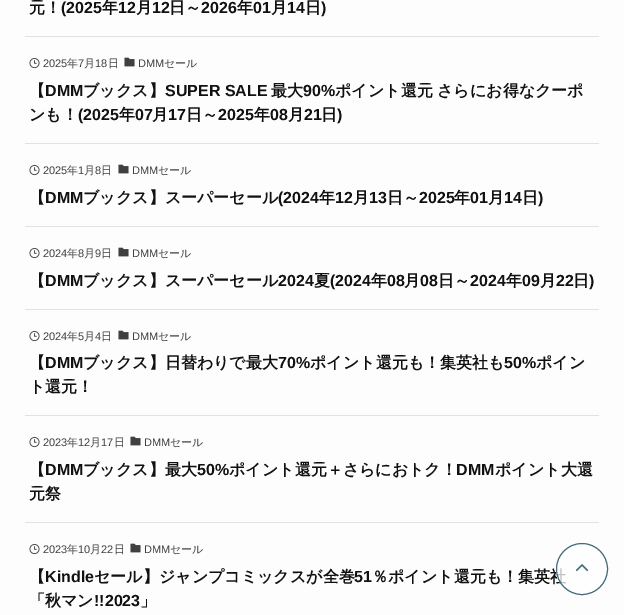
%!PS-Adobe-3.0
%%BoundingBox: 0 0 624 615
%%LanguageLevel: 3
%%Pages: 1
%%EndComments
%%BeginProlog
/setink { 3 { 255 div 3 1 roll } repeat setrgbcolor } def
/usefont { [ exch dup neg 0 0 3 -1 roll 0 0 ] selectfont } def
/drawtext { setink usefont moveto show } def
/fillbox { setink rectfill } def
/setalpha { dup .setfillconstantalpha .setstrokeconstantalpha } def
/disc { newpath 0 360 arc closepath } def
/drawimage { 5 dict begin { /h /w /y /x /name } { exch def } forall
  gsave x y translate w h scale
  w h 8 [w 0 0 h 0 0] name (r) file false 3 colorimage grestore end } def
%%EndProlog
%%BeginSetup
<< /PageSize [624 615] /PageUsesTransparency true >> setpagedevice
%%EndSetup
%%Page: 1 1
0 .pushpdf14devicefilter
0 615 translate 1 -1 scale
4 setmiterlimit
0 0 624 615 253 253 253 fillbox
25 36 574 1 226 226 226 fillbox
(元！) 29 13 /WenQuanYiZenHei-Bold 16 17 17 17 drawtext
(\(2025) 61 13 /LiberationSans-Bold 16 17 17 17 drawtext
(年) 102 13 /WenQuanYiZenHei-Bold 16 17 17 17 drawtext
(12) 118 13 /LiberationSans-Bold 16 17 17 17 drawtext
(月) 136 13 /WenQuanYiZenHei-Bold 16 17 17 17 drawtext
(12) 152 13 /LiberationSans-Bold 16 17 17 17 drawtext
(日～) 169 13 /WenQuanYiZenHei-Bold 16 17 17 17 drawtext
(2026) 201 13 /LiberationSans-Bold 16 17 17 17 drawtext
(年) 237 13 /WenQuanYiZenHei-Bold 16 17 17 17 drawtext
(01) 253 13 /LiberationSans-Bold 16 17 17 17 drawtext
(月) 271 13 /WenQuanYiZenHei-Bold 16 17 17 17 drawtext
(14) 287 13 /LiberationSans-Bold 16 17 17 17 drawtext
(日) 305 13 /WenQuanYiZenHei-Bold 16 17 17 17 drawtext
(\)) 321 13 /LiberationSans-Bold 16 17 17 17 drawtext
25 143 574 1 226 226 226 fillbox
(assets/img1.rgb) 29 58 11 11 drawimage
(2025) 43 67 /LiberationSans-Regular 11 64 64 64 drawtext
(年) 67 67 /WenQuanYiZenHei-Medium 11 64 64 64 drawtext
(7) 78 67 /LiberationSans-Regular 11 64 64 64 drawtext
(月) 84 67 /WenQuanYiZenHei-Medium 11 64 64 64 drawtext
(18) 95 67 /LiberationSans-Regular 11 64 64 64 drawtext
(日) 108 67 /WenQuanYiZenHei-Medium 11 64 64 64 drawtext
(assets/img2.rgb) 124 57 11 10 drawimage
(DMM) 138 67 /LiberationSans-Regular 11 64 64 64 drawtext
(セール) 164 67 /WenQuanYiZenHei-Medium 11 64 64 64 drawtext
(【) 29 96 /WenQuanYiZenHei-Bold 16 17 17 17 drawtext
(DMM) 45 96 /LiberationSans-Bold 16 17 17 17 drawtext
(ブックス】) 83 96 /WenQuanYiZenHei-Bold 16 17 17 17 drawtext
(SUPER SALE) 165 96 /LiberationSans-Bold 16 17 17 17 drawtext
(最大) 271 96 /WenQuanYiZenHei-Bold 16 17 17 17 drawtext
(90%) 303 96 /LiberationSans-Bold 16 17 17 17 drawtext
(ポイント還元) 335 96 /WenQuanYiZenHei-Bold 16 17 17 17 drawtext
(さらにお得なクーポ) 437 96 /WenQuanYiZenHei-Bold 16 17 17 17 drawtext
(ンも！) 29 120 /WenQuanYiZenHei-Bold 16 17 17 17 drawtext
(\(2025) 78 120 /LiberationSans-Bold 16 17 17 17 drawtext
(年) 119 120 /WenQuanYiZenHei-Bold 16 17 17 17 drawtext
(07) 135 120 /LiberationSans-Bold 16 17 17 17 drawtext
(月) 152 120 /WenQuanYiZenHei-Bold 16 17 17 17 drawtext
(17) 168 120 /LiberationSans-Bold 16 17 17 17 drawtext
(日～) 186 120 /WenQuanYiZenHei-Bold 16 17 17 17 drawtext
(2025) 218 120 /LiberationSans-Bold 16 17 17 17 drawtext
(年) 254 120 /WenQuanYiZenHei-Bold 16 17 17 17 drawtext
(08) 270 120 /LiberationSans-Bold 16 17 17 17 drawtext
(月) 288 120 /WenQuanYiZenHei-Bold 16 17 17 17 drawtext
(21) 304 120 /LiberationSans-Bold 16 17 17 17 drawtext
(日) 321 120 /WenQuanYiZenHei-Bold 16 17 17 17 drawtext
(\)) 337 120 /LiberationSans-Bold 16 17 17 17 drawtext
25 226 574 1 226 226 226 fillbox
(assets/img1.rgb) 29 165 11 11 drawimage
(2025) 43 174 /LiberationSans-Regular 11 64 64 64 drawtext
(年) 67 174 /WenQuanYiZenHei-Medium 11 64 64 64 drawtext
(1) 78 174 /LiberationSans-Regular 11 64 64 64 drawtext
(月) 84 174 /WenQuanYiZenHei-Medium 11 64 64 64 drawtext
(8) 95 174 /LiberationSans-Regular 11 64 64 64 drawtext
(日) 101 174 /WenQuanYiZenHei-Medium 11 64 64 64 drawtext
(assets/img2.rgb) 118 164 11 10 drawimage
(DMM) 132 174 /LiberationSans-Regular 11 64 64 64 drawtext
(セール) 158 174 /WenQuanYiZenHei-Medium 11 64 64 64 drawtext
(【) 29 203 /WenQuanYiZenHei-Bold 16 17 17 17 drawtext
(DMM) 45 203 /LiberationSans-Bold 16 17 17 17 drawtext
(ブックス】スーパーセール) 83 203 /WenQuanYiZenHei-Bold 16 17 17 17 drawtext
(\(2024) 278 203 /LiberationSans-Bold 16 17 17 17 drawtext
(年) 319 203 /WenQuanYiZenHei-Bold 16 17 17 17 drawtext
(12) 335 203 /LiberationSans-Bold 16 17 17 17 drawtext
(月) 353 203 /WenQuanYiZenHei-Bold 16 17 17 17 drawtext
(13) 369 203 /LiberationSans-Bold 16 17 17 17 drawtext
(日～) 387 203 /WenQuanYiZenHei-Bold 16 17 17 17 drawtext
(2025) 419 203 /LiberationSans-Bold 16 17 17 17 drawtext
(年) 454 203 /WenQuanYiZenHei-Bold 16 17 17 17 drawtext
(01) 470 203 /LiberationSans-Bold 16 17 17 17 drawtext
(月) 488 203 /WenQuanYiZenHei-Bold 16 17 17 17 drawtext
(14) 504 203 /LiberationSans-Bold 16 17 17 17 drawtext
(日) 522 203 /WenQuanYiZenHei-Bold 16 17 17 17 drawtext
(\)) 538 203 /LiberationSans-Bold 16 17 17 17 drawtext
25 309 574 1 226 226 226 fillbox
(assets/img1.rgb) 29 248 11 11 drawimage
(2024) 43 257 /LiberationSans-Regular 11 64 64 64 drawtext
(年) 67 257 /WenQuanYiZenHei-Medium 11 64 64 64 drawtext
(8) 78 257 /LiberationSans-Regular 11 64 64 64 drawtext
(月) 84 257 /WenQuanYiZenHei-Medium 11 64 64 64 drawtext
(9) 95 257 /LiberationSans-Regular 11 64 64 64 drawtext
(日) 101 257 /WenQuanYiZenHei-Medium 11 64 64 64 drawtext
(assets/img2.rgb) 118 247 11 10 drawimage
(DMM) 132 257 /LiberationSans-Regular 11 64 64 64 drawtext
(セール) 158 257 /WenQuanYiZenHei-Medium 11 64 64 64 drawtext
(【) 29 286 /WenQuanYiZenHei-Bold 16 17 17 17 drawtext
(DMM) 45 286 /LiberationSans-Bold 16 17 17 17 drawtext
(ブックス】スーパーセール) 83 286 /WenQuanYiZenHei-Bold 16 17 17 17 drawtext
(2024) 278 286 /LiberationSans-Bold 16 17 17 17 drawtext
(夏) 314 286 /WenQuanYiZenHei-Bold 16 17 17 17 drawtext
(\(2024) 330 286 /LiberationSans-Bold 16 17 17 17 drawtext
(年) 371 286 /WenQuanYiZenHei-Bold 16 17 17 17 drawtext
(08) 387 286 /LiberationSans-Bold 16 17 17 17 drawtext
(月) 404 286 /WenQuanYiZenHei-Bold 16 17 17 17 drawtext
(08) 420 286 /LiberationSans-Bold 16 17 17 17 drawtext
(日～) 438 286 /WenQuanYiZenHei-Bold 16 17 17 17 drawtext
(2024) 470 286 /LiberationSans-Bold 16 17 17 17 drawtext
(年) 506 286 /WenQuanYiZenHei-Bold 16 17 17 17 drawtext
(09) 522 286 /LiberationSans-Bold 16 17 17 17 drawtext
(月) 540 286 /WenQuanYiZenHei-Bold 16 17 17 17 drawtext
(22) 556 286 /LiberationSans-Bold 16 17 17 17 drawtext
(日) 573 286 /WenQuanYiZenHei-Bold 16 17 17 17 drawtext
(\)) 589 286 /LiberationSans-Bold 16 17 17 17 drawtext
25 415 574 1 226 226 226 fillbox
(assets/img1.rgb) 29 331 11 11 drawimage
(2024) 43 340 /LiberationSans-Regular 11 64 64 64 drawtext
(年) 67 340 /WenQuanYiZenHei-Medium 11 64 64 64 drawtext
(5) 78 340 /LiberationSans-Regular 11 64 64 64 drawtext
(月) 84 340 /WenQuanYiZenHei-Medium 11 64 64 64 drawtext
(4) 95 340 /LiberationSans-Regular 11 64 64 64 drawtext
(日) 101 340 /WenQuanYiZenHei-Medium 11 64 64 64 drawtext
(assets/img2.rgb) 118 330 11 10 drawimage
(DMM) 132 340 /LiberationSans-Regular 11 64 64 64 drawtext
(セール) 158 340 /WenQuanYiZenHei-Medium 11 64 64 64 drawtext
(【) 29 368 /WenQuanYiZenHei-Bold 16 17 17 17 drawtext
(DMM) 45 368 /LiberationSans-Bold 16 17 17 17 drawtext
(ブックス】日替わりで最大) 83 368 /WenQuanYiZenHei-Bold 16 17 17 17 drawtext
(70%) 278 368 /LiberationSans-Bold 16 17 17 17 drawtext
(ポイント還元も！集英社も) 310 368 /WenQuanYiZenHei-Bold 16 17 17 17 drawtext
(50%) 504 368 /LiberationSans-Bold 16 17 17 17 drawtext
(ポイン) 536 368 /WenQuanYiZenHei-Bold 16 17 17 17 drawtext
(ト還元！) 29 392 /WenQuanYiZenHei-Bold 16 17 17 17 drawtext
25 522 574 1 226 226 226 fillbox
(assets/img1.rgb) 29 437 11 11 drawimage
(2023) 43 446 /LiberationSans-Regular 11 64 64 64 drawtext
(年) 67 446 /WenQuanYiZenHei-Medium 11 64 64 64 drawtext
(12) 78 446 /LiberationSans-Regular 11 64 64 64 drawtext
(月) 90 446 /WenQuanYiZenHei-Medium 11 64 64 64 drawtext
(17) 101 446 /LiberationSans-Regular 11 64 64 64 drawtext
(日) 114 446 /WenQuanYiZenHei-Medium 11 64 64 64 drawtext
(assets/img2.rgb) 130 436 11 10 drawimage
(DMM) 144 446 /LiberationSans-Regular 11 64 64 64 drawtext
(セール) 170 446 /WenQuanYiZenHei-Medium 11 64 64 64 drawtext
(【) 29 475 /WenQuanYiZenHei-Bold 16 17 17 17 drawtext
(DMM) 45 475 /LiberationSans-Bold 16 17 17 17 drawtext
(ブックス】最大) 83 475 /WenQuanYiZenHei-Bold 16 17 17 17 drawtext
(50%) 197 475 /LiberationSans-Bold 16 17 17 17 drawtext
(ポイント還元＋さらにおトク！) 229 475 /WenQuanYiZenHei-Bold 16 17 17 17 drawtext
(DMM) 456 475 /LiberationSans-Bold 16 17 17 17 drawtext
(ポイント大還) 495 475 /WenQuanYiZenHei-Bold 16 17 17 17 drawtext
(元祭) 29 499 /WenQuanYiZenHei-Bold 16 17 17 17 drawtext
(assets/img1.rgb) 29 544 11 11 drawimage
(2023) 43 553 /LiberationSans-Regular 11 64 64 64 drawtext
(年) 67 553 /WenQuanYiZenHei-Medium 11 64 64 64 drawtext
(10) 78 553 /LiberationSans-Regular 11 64 64 64 drawtext
(月) 90 553 /WenQuanYiZenHei-Medium 11 64 64 64 drawtext
(22) 101 553 /LiberationSans-Regular 11 64 64 64 drawtext
(日) 114 553 /WenQuanYiZenHei-Medium 11 64 64 64 drawtext
(assets/img2.rgb) 130 543 11 10 drawimage
(DMM) 144 553 /LiberationSans-Regular 11 64 64 64 drawtext
(セール) 170 553 /WenQuanYiZenHei-Medium 11 64 64 64 drawtext
(【) 29 582 /WenQuanYiZenHei-Bold 16 17 17 17 drawtext
(Kindle) 45 582 /LiberationSans-Bold 16 17 17 17 drawtext
(セール】ジャンプコミックスが全巻) 94 582 /WenQuanYiZenHei-Bold 16 17 17 17 drawtext
(51) 354 582 /LiberationSans-Bold 16 17 17 17 drawtext
(％ポイント還元も！集英社) 372 582 /WenQuanYiZenHei-Bold 16 17 17 17 drawtext
(「秋マン) 29 606 /WenQuanYiZenHei-Bold 16 17 17 17 drawtext
(!!2023) 94 606 /LiberationSans-Bold 16 17 17 17 drawtext
(」) 140 606 /WenQuanYiZenHei-Bold 16 17 17 17 drawtext
0.75 setalpha
255 255 255 setink
582 569 26 disc fill
4 56 76 setink
582 569 25.5 disc stroke
1 setalpha
(assets/img3.rgb) 575 564 14 8 drawimage
.poppdf14devicefilter showpage
%%EOF
